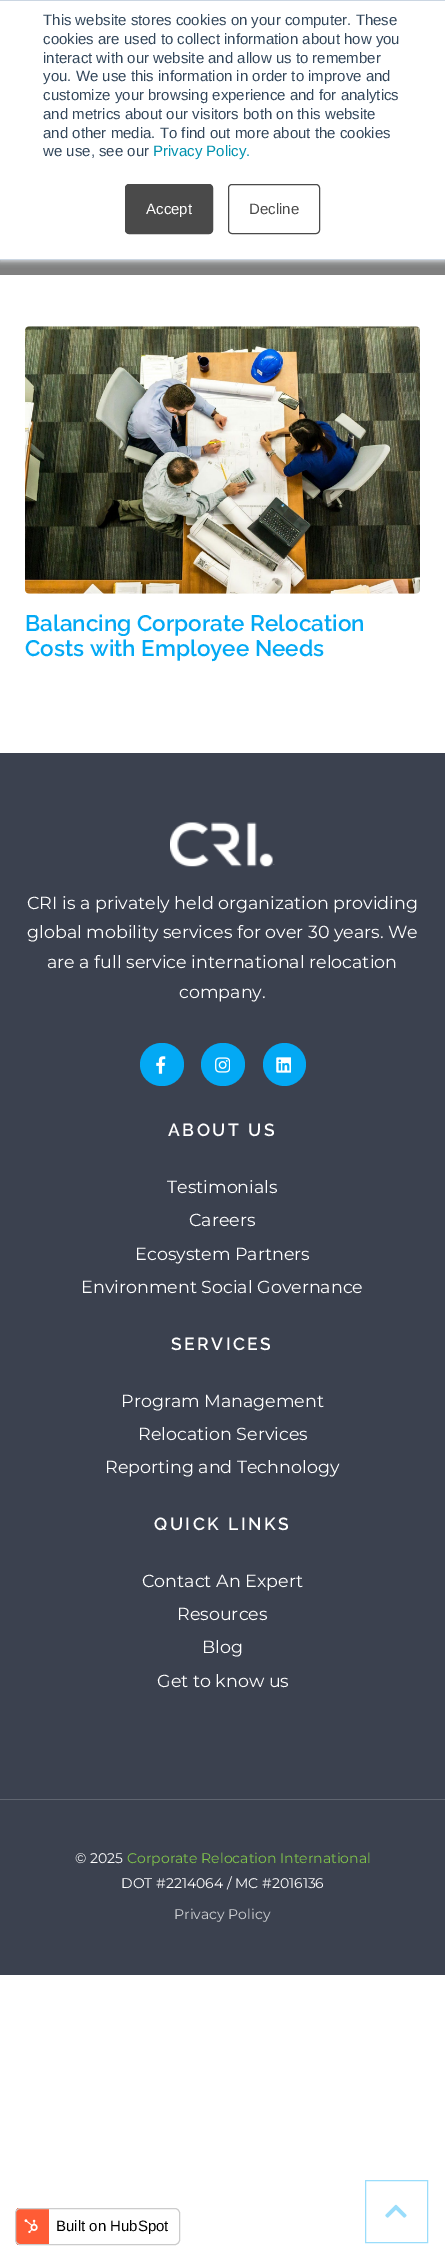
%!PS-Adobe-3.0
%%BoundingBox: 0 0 445 2260
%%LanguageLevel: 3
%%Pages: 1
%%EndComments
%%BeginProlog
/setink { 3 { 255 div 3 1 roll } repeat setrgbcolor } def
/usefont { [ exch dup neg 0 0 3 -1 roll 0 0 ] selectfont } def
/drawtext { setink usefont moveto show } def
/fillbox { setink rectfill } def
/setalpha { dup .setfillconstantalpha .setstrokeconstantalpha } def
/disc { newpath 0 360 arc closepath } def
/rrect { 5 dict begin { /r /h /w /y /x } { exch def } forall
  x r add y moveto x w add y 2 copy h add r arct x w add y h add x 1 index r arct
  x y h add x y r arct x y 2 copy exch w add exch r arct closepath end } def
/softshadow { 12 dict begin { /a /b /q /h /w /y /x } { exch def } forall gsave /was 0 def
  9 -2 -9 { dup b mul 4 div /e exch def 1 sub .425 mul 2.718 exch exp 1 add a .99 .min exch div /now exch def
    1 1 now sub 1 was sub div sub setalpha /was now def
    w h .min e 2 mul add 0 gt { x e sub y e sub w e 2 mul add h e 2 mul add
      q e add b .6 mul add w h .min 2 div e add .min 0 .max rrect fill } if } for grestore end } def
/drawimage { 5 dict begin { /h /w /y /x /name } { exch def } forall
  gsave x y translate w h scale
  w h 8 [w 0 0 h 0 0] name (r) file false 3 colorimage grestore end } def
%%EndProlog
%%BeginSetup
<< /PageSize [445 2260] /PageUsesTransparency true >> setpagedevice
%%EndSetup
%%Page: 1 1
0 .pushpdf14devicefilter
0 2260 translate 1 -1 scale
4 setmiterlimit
0 0 445 2260 255 255 255 fillbox
0 260 445 14 128 128 128 fillbox
234 240 246 setink
0 1 445 260 0 3 1 softshadow
0 1 445 258 255 255 255 fillbox
0 0 445 1 203 214 226 fillbox
0 259 445 1 203 214 226 fillbox
(This website stores cookies on your computer. These) 43 25 /LiberationSans-Regular 15 51 71 91 drawtext
(cookies are used to collect information about how you) 43 44 /LiberationSans-Regular 15 51 71 91 drawtext
(interact with our website and allow us to remember) 43 63 /LiberationSans-Regular 15 51 71 91 drawtext
(you. We use this information in order to improve and) 43 81 /LiberationSans-Regular 15 51 71 91 drawtext
(customize your browsing experience and for analytics) 43 100 /LiberationSans-Regular 15 51 71 91 drawtext
(and metrics about our visitors both on this website) 43 119 /LiberationSans-Regular 15 51 71 91 drawtext
(and other media. To find out more about the cookies) 43 138 /LiberationSans-Regular 15 51 71 91 drawtext
(we use, see our) 43 156 /LiberationSans-Regular 15 51 71 91 drawtext
(Privacy Policy.) 153 156 /LiberationSans-Regular 15 0 145 174 drawtext
74 74 74 setink
125.5 184.5 87 49 3.5 rrect gsave fill grestore
stroke
(Accept) 146 214 /LiberationSans-Regular 15 255 255 255 drawtext
74 74 74 setink
228.5 184.5 91 49 3.5 rrect stroke
(Decline) 249 214 /LiberationSans-Regular 15 74 74 74 drawtext
0 274 445 1 127 127 127 fillbox
(assets/img1.rgb) 25 326 395 268 drawimage
(Balancing Corporate Relocation) 25 631 /Raleway-SemiBold 22.5 3 169 244 drawtext
(Costs with Employee Needs) 25 656 /Raleway-SemiBold 22.5 3 169 244 drawtext
0 753 445 1222 59 65 79 fillbox
(assets/img2.rgb) 170 822 103 45 drawimage
(assets/img3.rgb) 273 864 2 1 drawimage
(CRI is a privately held organization providing) 27 909 /Montserrat-Regular 17.5 255 255 255 drawtext
(global mobility services for over 30 years. We) 27 938 /Montserrat-Regular 17.5 255 255 255 drawtext
(are a full service international relocation) 47 968 /Montserrat-Regular 17.5 255 255 255 drawtext
(company.) 179 998 /Montserrat-Regular 17.5 255 255 255 drawtext
3 169 244 setink
140 1043 44 43 21.5 rrect fill
(assets/img4.rgb) 156 1056 10 18 drawimage
201 1043 44 43 21.5 rrect fill
(assets/img5.rgb) 215 1057 15 16 drawimage
284.5 1064.5 21.5 disc fill
(assets/img6.rgb) 276 1057 15 16 drawimage
/Raleway-SemiBold 17.5 usefont
255 255 255 setink
168 1136 moveto 2.5 0 (ABOUT US) ashow
(Testimonials) 167 1193 /Montserrat-Regular 17.5 255 255 255 drawtext
(Careers) 189 1226 /Montserrat-Regular 17.5 255 255 255 drawtext
(Ecosystem Partners) 135 1260 /Montserrat-Regular 17.5 255 255 255 drawtext
(Environment Social Governance) 81 1293 /Montserrat-Regular 17.5 255 255 255 drawtext
/Raleway-SemiBold 17.5 usefont
171 1350 moveto 2.5 0 (SERVICES) ashow
(Program Management) 121 1407 /Montserrat-Regular 17.5 255 255 255 drawtext
(Relocation Services) 138 1440 /Montserrat-Regular 17.5 255 255 255 drawtext
(Reporting and Technology) 105 1473 /Montserrat-Regular 17.5 255 255 255 drawtext
/Raleway-SemiBold 17.5 usefont
154 1530 moveto 2.5 0 (QUICK LINKS) ashow
(Contact An Expert) 142 1587 /Montserrat-Regular 17.5 255 255 255 drawtext
(Resources) 177 1620 /Montserrat-Regular 17.5 255 255 255 drawtext
(Blog) 202 1653 /Montserrat-Regular 17.5 255 255 255 drawtext
(Get to know us) 157 1687 /Montserrat-Regular 17.5 255 255 255 drawtext
0 1799 445 1 96 101 112 fillbox
(© 2025) 75 1863 /Montserrat-Regular 14 255 255 255 drawtext
(Corporate Relocation International) 127 1863 /Montserrat-Regular 14 129 197 75 drawtext
(DOT #2214064 / MC #2016136) 121 1888 /Montserrat-Regular 14 255 255 255 drawtext
(Privacy Policy) 174 1919 /Montserrat-Regular 14 206 208 211 drawtext
154 221 251 setink
365.5 2180.5 62 62 rectstroke
(assets/img7.rgb) 385 2204 22 14 drawimage
gsave
15 2208 165 37 5 rrect clip newpath
16 2208 33 37 255 92 53 fillbox
grestore
204 204 204 setink
15.5 2208.5 164 36 4.5 rrect stroke
(assets/img8.rgb) 24 2219 14 15 drawimage
(Built on HubSpot) 56 2231 /LiberationSans-Regular 15 0 0 0 drawtext
.poppdf14devicefilter showpage
%%EOF
